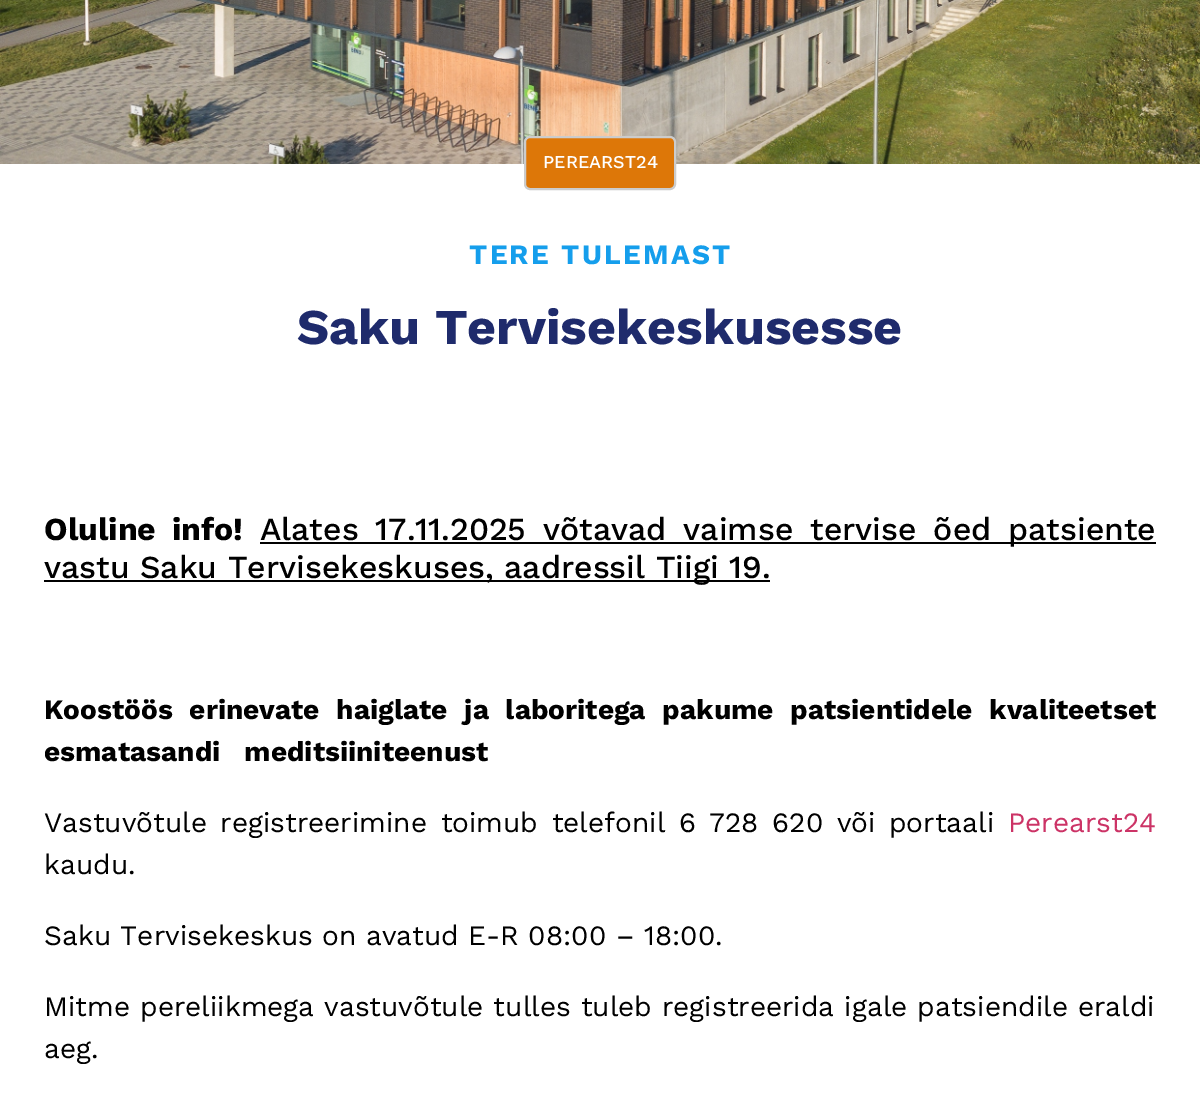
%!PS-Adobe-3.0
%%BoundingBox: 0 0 1200 1118
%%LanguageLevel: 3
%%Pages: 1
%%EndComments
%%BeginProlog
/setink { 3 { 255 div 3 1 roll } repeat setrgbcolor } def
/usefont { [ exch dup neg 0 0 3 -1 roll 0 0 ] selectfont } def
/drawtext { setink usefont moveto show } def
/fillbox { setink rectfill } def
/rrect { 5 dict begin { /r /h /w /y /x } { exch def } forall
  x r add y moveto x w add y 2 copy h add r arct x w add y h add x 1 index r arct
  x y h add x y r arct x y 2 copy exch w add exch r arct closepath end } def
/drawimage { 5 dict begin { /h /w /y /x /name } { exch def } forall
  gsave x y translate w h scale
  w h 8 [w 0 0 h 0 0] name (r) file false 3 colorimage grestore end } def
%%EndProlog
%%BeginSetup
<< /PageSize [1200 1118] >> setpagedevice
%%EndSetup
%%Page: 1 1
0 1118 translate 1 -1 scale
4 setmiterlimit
0 0 1200 1118 255 255 255 fillbox
(assets/img1.rgb) 0 0 1200 164 drawimage
221 119 8 setink
525 137 150 52 5 rrect gsave fill grestore
204 204 204 setink
2 setlinewidth
stroke
(PEREARST24) 543 168 /WorkSans-Medium 18 255 255 255 drawtext
/WorkSans-Bold 28 usefont
21 158 236 setink
469 264 moveto 2.25 0 (TERE TULEMAST) ashow
(Saku Tervisekeskusesse) 297 344 /WorkSans-Bold 50 31 43 108 drawtext
/WorkSans-Bold 32 usefont
0 0 0 setink
44 540 moveto 6.5 0 32 (Oluline info!) widthshow
260 542 896 2 0 0 0 fillbox
/WorkSans-Medium 32 usefont
260 540 moveto 6.5 0 32 (Alates 17.11.2025 võtavad vaimse tervise õed patsiente) widthshow
44 580 726 2 0 0 0 fillbox
(vastu Saku Tervisekeskuses, aadressil Tiigi 19.) 44 578 /WorkSans-Medium 32 0 0 0 drawtext
/WorkSans-Bold 28 usefont
44 719 moveto 8.75 0 32 (Koostöös erinevate haiglate ja laboritega pakume patsientidele kvaliteetset) widthshow
44 761 moveto 16 0 32 (esmatasandi meditsiiniteenust) widthshow
/WorkSans-Regular 28 usefont
44 832 moveto 4 0 32 (Vastuvõtule registreerimine toimub telefonil 6 728 620 või portaali) widthshow
(Perearst24) 1008 832 /WorkSans-Regular 28 204 51 102 drawtext
(kaudu.) 44 874 /WorkSans-Regular 28 0 0 0 drawtext
(Saku Tervisekeskus on avatud E-R 08:00 – 18:00.) 44 945 /WorkSans-Regular 28 0 0 0 drawtext
44 1016 moveto 0.5 0 32 (Mitme pereliikmega vastuvõtule tulles tuleb registreerida igale patsiendile eraldi) widthshow
(aeg.) 44 1058 /WorkSans-Regular 28 0 0 0 drawtext
showpage
%%EOF
